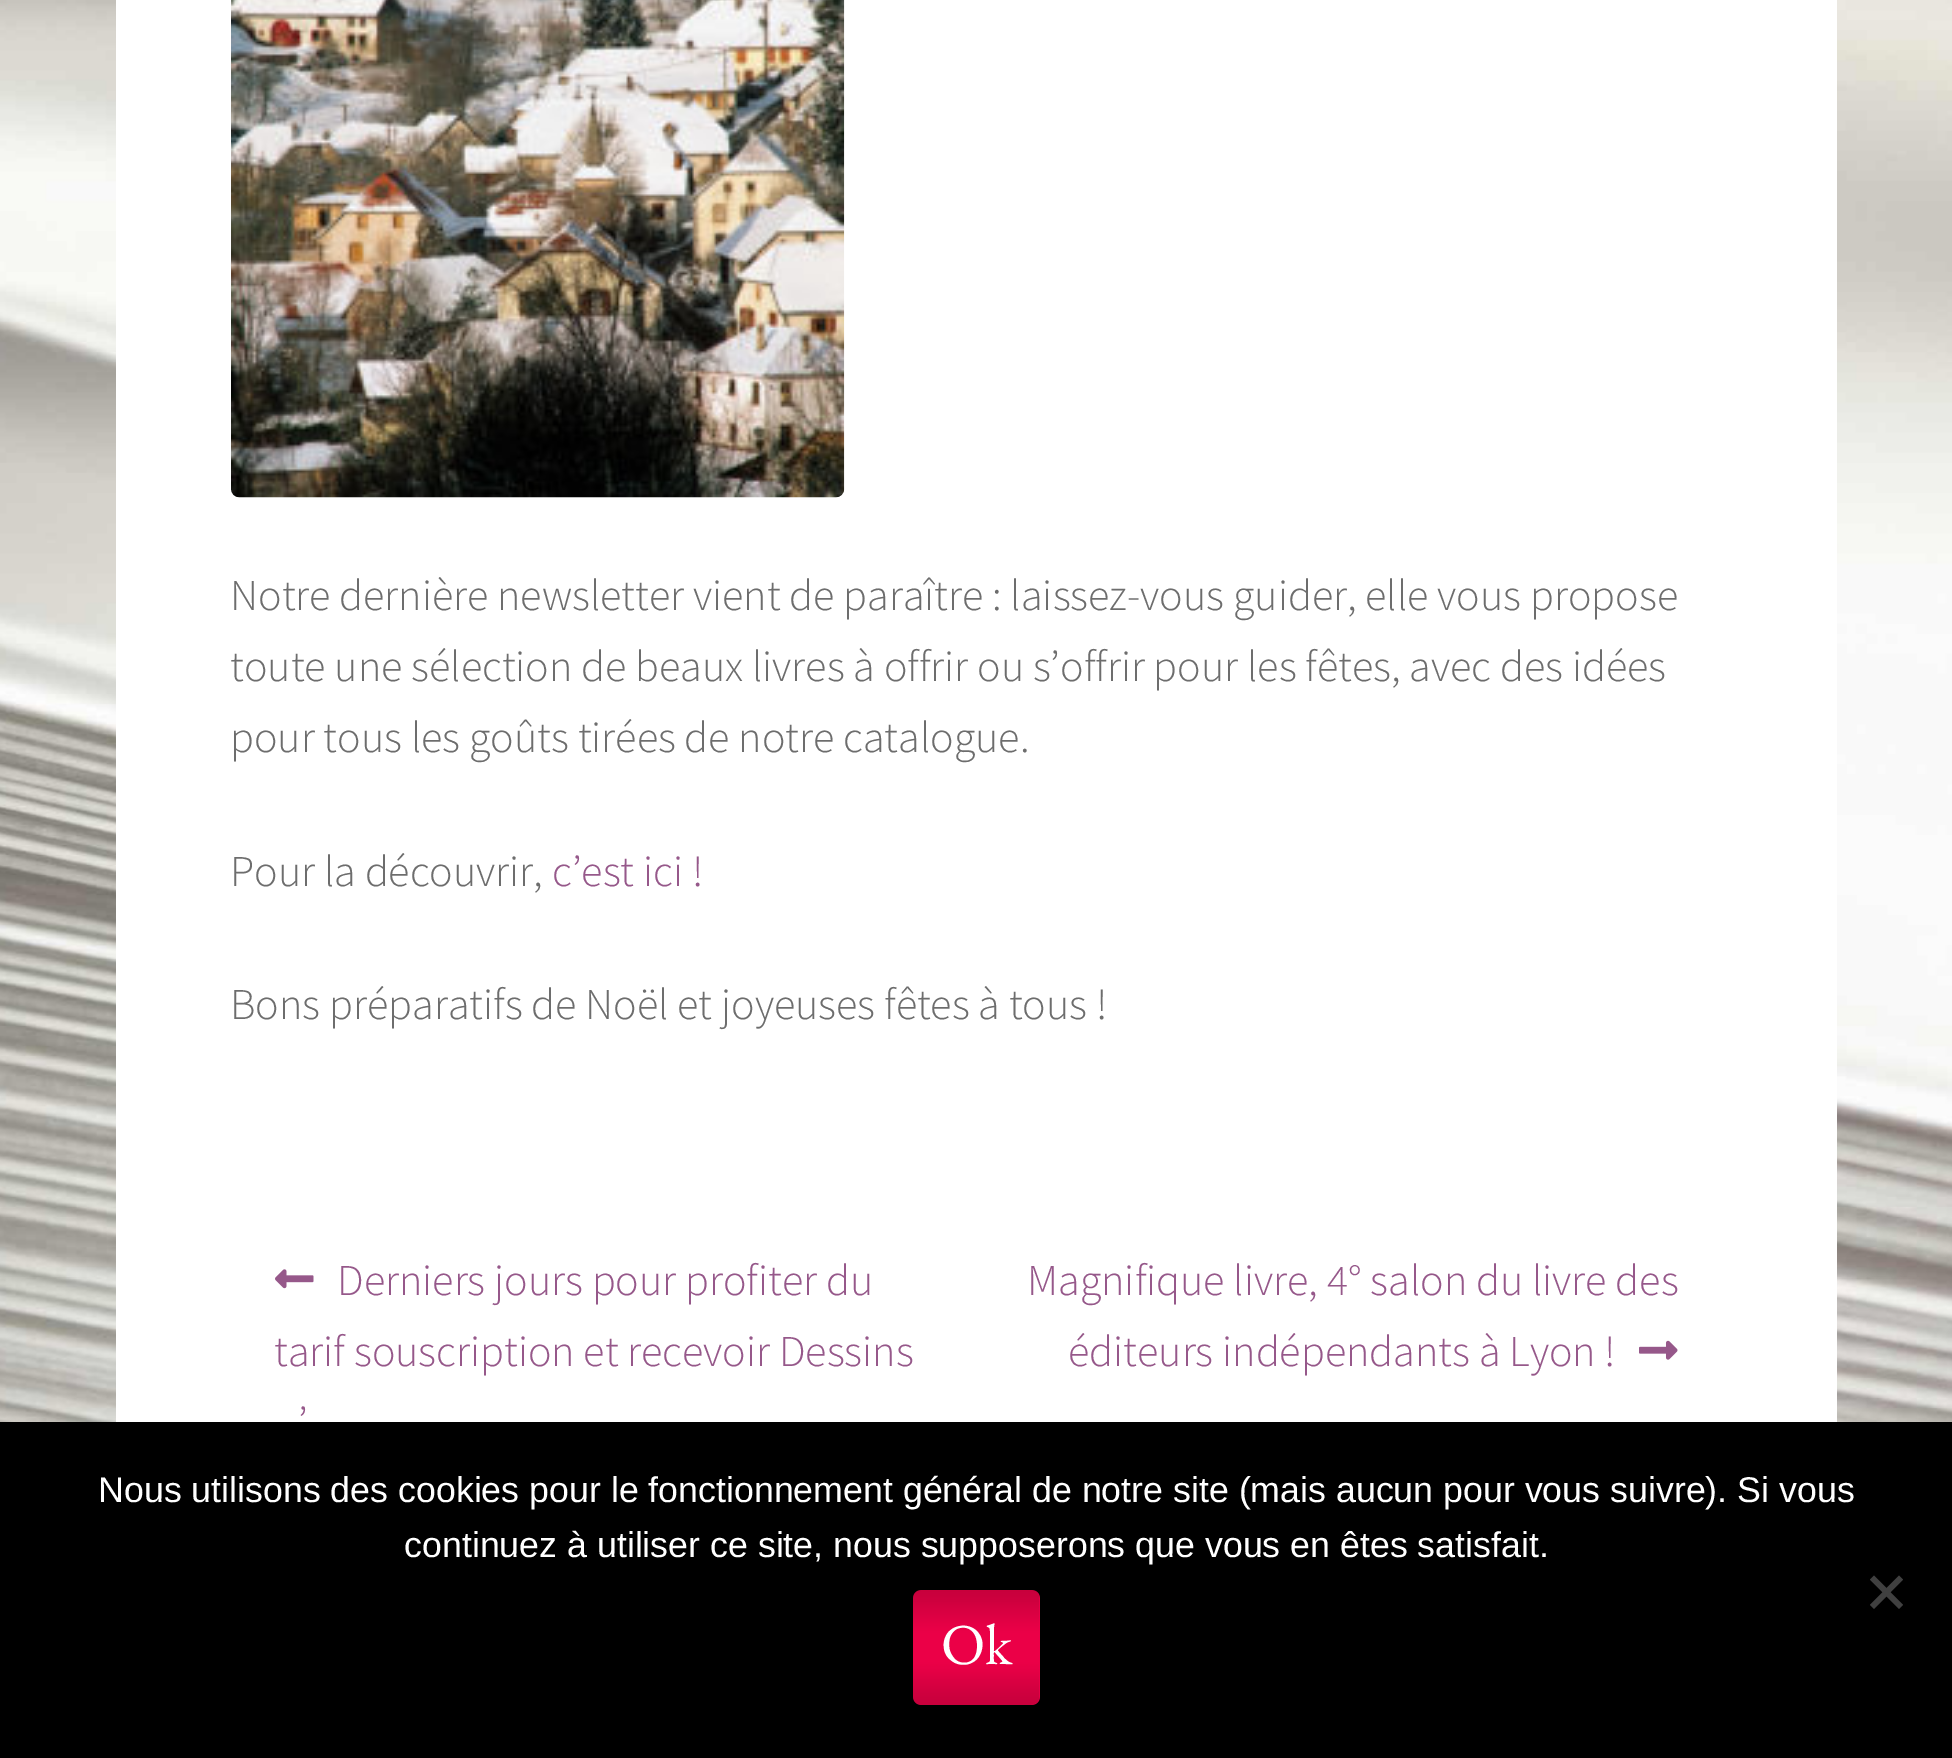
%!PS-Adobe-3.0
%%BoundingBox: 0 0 1952 1758
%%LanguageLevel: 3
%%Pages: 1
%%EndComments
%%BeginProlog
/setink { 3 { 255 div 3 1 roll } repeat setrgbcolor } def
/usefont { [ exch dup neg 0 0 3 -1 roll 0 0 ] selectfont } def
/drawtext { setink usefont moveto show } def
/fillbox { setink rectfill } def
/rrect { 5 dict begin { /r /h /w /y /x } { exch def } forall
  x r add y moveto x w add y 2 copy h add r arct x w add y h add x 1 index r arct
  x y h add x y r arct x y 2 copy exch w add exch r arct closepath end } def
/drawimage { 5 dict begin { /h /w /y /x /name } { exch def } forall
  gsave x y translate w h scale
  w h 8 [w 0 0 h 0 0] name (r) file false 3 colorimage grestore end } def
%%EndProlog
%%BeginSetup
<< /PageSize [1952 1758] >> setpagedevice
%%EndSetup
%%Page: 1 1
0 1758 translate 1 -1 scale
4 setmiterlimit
0 0 1952 1758 255 255 255 fillbox
(assets/img1.rgb) 0 0 1952 1422 drawimage
116 0 1721 1422 255 255 255 fillbox
(assets/img2.rgb) 231 0 614 498 drawimage
(Notre dernière newsletter vient de paraître : laissez-vous guider, elle vous propose) 230 610 /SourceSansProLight-Light 44 109 109 109 drawtext
(toute une sélection de beaux livres à offrir ou s’offrir pour les fêtes, avec des idées) 230 681 /SourceSansProLight-Light 44 109 109 109 drawtext
(pour tous les goûts tirées de notre catalogue.) 230 752 /SourceSansProLight-Light 44 109 109 109 drawtext
(Pour la découvrir,) 230 886 /SourceSansProLight-Light 44 109 109 109 drawtext
(c’est ici !) 552 886 /SourceSansProLight-Light 44 150 88 138 drawtext
(Bons préparatifs de Noël et joyeuses fêtes à tous !) 230 1019 /SourceSansProLight-Light 44 109 109 109 drawtext
(assets/img3.rgb) 275 1269 39 20 drawimage
(Derniers jours pour profiter du) 337 1295 /SourceSansProLight-Light 44 150 88 138 drawtext
(tarif souscription et recevoir Dessins) 274 1366 /SourceSansProLight-Light 44 150 88 138 drawtext
(’) 298 1437 /SourceSansProLight-Light 44 150 88 138 drawtext
(Magnifique livre, 4° salon du livre des) 1027 1295 /SourceSansProLight-Light 44 150 88 138 drawtext
(éditeurs indépendants à Lyon !) 1068 1366 /SourceSansProLight-Light 44 150 88 138 drawtext
(assets/img4.rgb) 1639 1340 39 20 drawimage
0 1422 1952 336 0 0 0 fillbox
(Nous utilisons des cookies pour le fonctionnement général de notre site \(mais aucun pour vous suivre\). Si vous) 98 1502 /LiberationSans-Regular 35.75 255 255 255 drawtext
(continuez à utiliser ce site, nous supposerons que vous en êtes satisfait.) 404 1557 /LiberationSans-Regular 35.75 255 255 255 drawtext
64 64 64 setink
1899 1575.5 moveto 1903 1579.5 lineto 1874 1609 lineto 1870 1605 lineto closepath fill
1870 1579.5 moveto 1874 1575.5 lineto 1903 1605 lineto 1899 1609 lineto closepath fill
235 0 71 setink
913 1590 127 115 8 rrect fill
(assets/img5.rgb) 913 1590 127 115 drawimage
(Ok) 941 1664 /EBGaramond-Regular 58 255 255 255 drawtext
showpage
%%EOF
